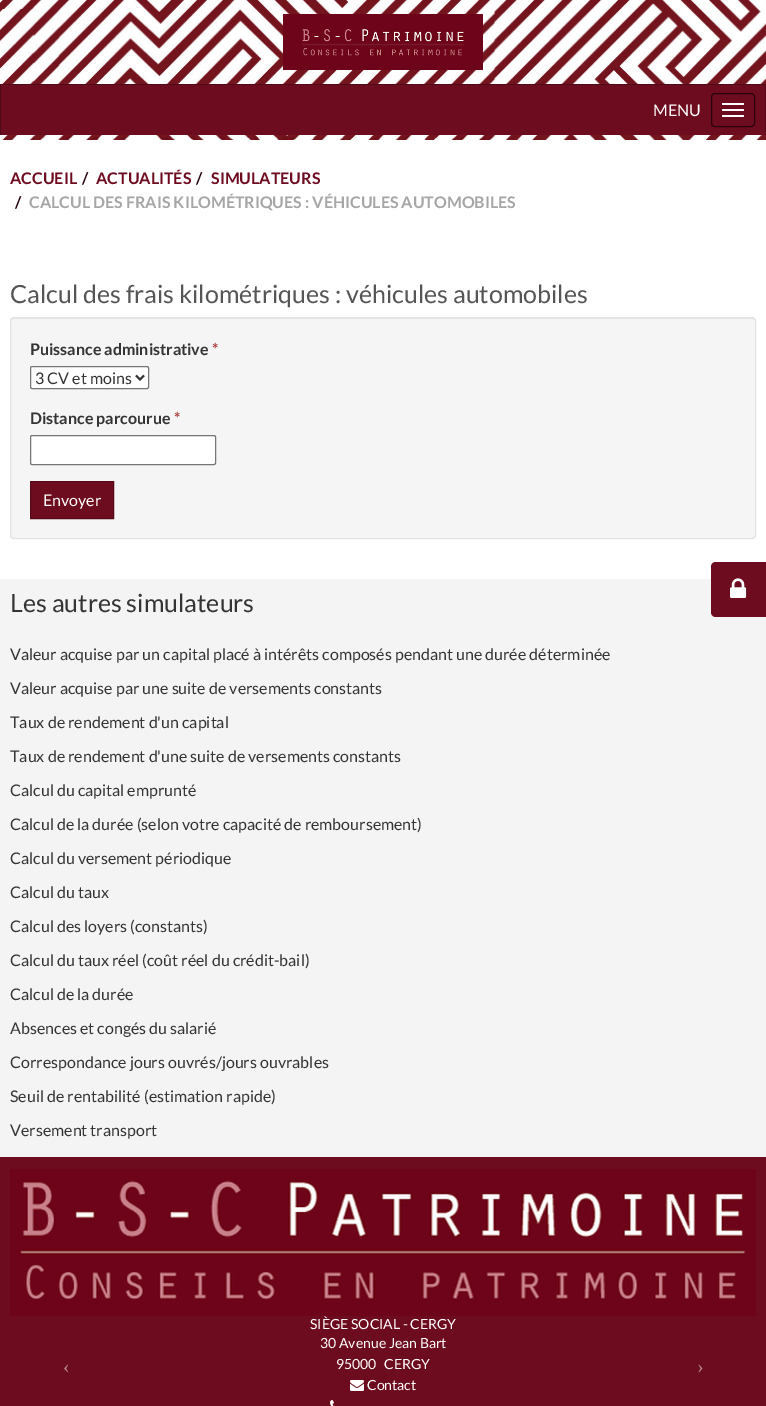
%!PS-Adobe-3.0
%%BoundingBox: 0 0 766 1406
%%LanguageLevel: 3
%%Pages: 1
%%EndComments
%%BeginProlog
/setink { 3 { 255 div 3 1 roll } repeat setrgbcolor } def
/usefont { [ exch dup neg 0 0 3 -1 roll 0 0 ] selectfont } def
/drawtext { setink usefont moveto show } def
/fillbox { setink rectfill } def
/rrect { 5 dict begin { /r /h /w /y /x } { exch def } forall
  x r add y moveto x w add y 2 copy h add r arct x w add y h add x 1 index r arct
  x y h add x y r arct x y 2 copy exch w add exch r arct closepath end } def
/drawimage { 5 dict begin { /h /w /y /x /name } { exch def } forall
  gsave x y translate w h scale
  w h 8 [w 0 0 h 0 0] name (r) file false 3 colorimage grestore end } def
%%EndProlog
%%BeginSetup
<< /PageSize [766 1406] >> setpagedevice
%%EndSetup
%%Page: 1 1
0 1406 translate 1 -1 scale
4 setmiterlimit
0 0 766 1406 255 255 255 fillbox
(assets/img1.rgb) 0 0 766 140 drawimage
(assets/img2.rgb) 283 14 200 56 drawimage
1 85 764 50 110 12 31 fillbox
0 84 766 1 80 9 23 fillbox
765 84 1 51 80 9 23 fillbox
0 84 1 51 80 9 23 fillbox
41 4 12 setink
711.5 93.5 43 33 3.5 rrect stroke
(MENU) 653 116 /Lato-Regular 16 255 255 255 drawtext
722 103 22 2 1 rrect fill
722 109 22 2 1 rrect fill
722 115 22 2 1 rrect fill
0 579 766 578 244 244 244 fillbox
110 12 31 setink
716 562 moveto 766 562 lineto 766 617 lineto 716 617 lineto 713 617 711 615 711 612 curveto 711 567 lineto 711 564 713 562 716 562 curveto closepath fill
(assets/img3.rgb) 730 578 17 20 drawimage
(ACCUEIL) 10 184 /Lato-Bold 16 110 12 31 drawtext
(/) 82 184 /Lato-Bold 16 41 4 12 drawtext
(ACTUALITÉS) 96 184 /Lato-Bold 16 110 12 31 drawtext
(/) 196 184 /Lato-Bold 16 41 4 12 drawtext
(SIMULATEURS) 211 184 /Lato-Bold 16 110 12 31 drawtext
(/) 15 208 /Lato-Bold 16 41 4 12 drawtext
(CALCUL DES FRAIS KILOMÉTRIQUES : VÉHICULES AUTOMOBILES) 29 208 /Lato-Bold 16 166 166 166 drawtext
(Calcul des frais kilométriques : véhicules automobiles) 10 303 /Lato-Regular 25 85 85 85 drawtext
245 245 245 setink
10 317 746 222 4 rrect fill
233 233 233 setink
14 319 moveto 752 319 lineto 754 319 755 320 755 322 curveto 755 320 754 318 752 318 curveto 14 318 lineto 12 318 11 320 11 322 curveto 11 320 12 319 14 319 curveto closepath fill
227 227 227 setink
10.5 317.5 745 221 3.5 rrect stroke
(Puissance administrative) 30 355 /Lato-Bold 16 52 52 52 drawtext
(*) 212 355 /Lato-Bold 16 169 68 66 drawtext
255 255 255 setink
30.5 366.5 118 22 1.5 rrect gsave fill grestore
118 118 118 setink
stroke
52 52 52 setink
2 setlinewidth
136 375.5 moveto 140 379.5 lineto 144 375.5 lineto stroke
(3 CV et moins) 35 384 /Lato-Regular 16 52 52 52 drawtext
(Distance parcourue) 30 424 /Lato-Bold 16 52 52 52 drawtext
(*) 174 424 /Lato-Bold 16 169 68 66 drawtext
255 255 255 setink
30.5 435.5 185 29 1.5 rrect gsave fill grestore
118 118 118 setink
1 setlinewidth
stroke
110 12 31 setink
30.5 481.5 moveto 113.5 481.5 lineto 113.5 518.5 lineto 30.5 518.5 lineto closepath gsave fill grestore
87 9 25 setink
stroke
(Envoyer) 43 506 /Lato-Regular 16 255 255 255 drawtext
(Les autres simulateurs) 10 612 /Lato-Regular 25 52 52 52 drawtext
(Valeur acquise par un capital placé à intérêts composés pendant une durée déterminée) 10 660 /Lato-Regular 16 52 52 52 drawtext
(Valeur acquise par une suite de versements constants) 10 694 /Lato-Regular 16 52 52 52 drawtext
(Taux de rendement d'un capital) 10 728 /Lato-Regular 16 52 52 52 drawtext
(Taux de rendement d'une suite de versements constants) 10 762 /Lato-Regular 16 52 52 52 drawtext
(Calcul du capital emprunté) 10 796 /Lato-Regular 16 52 52 52 drawtext
(Calcul de la durée \(selon votre capacité de remboursement\)) 10 830 /Lato-Regular 16 52 52 52 drawtext
(Calcul du versement périodique) 10 864 /Lato-Regular 16 52 52 52 drawtext
(Calcul du taux) 10 898 /Lato-Regular 16 52 52 52 drawtext
(Calcul des loyers \(constants\)) 10 932 /Lato-Regular 16 52 52 52 drawtext
(Calcul du taux réel \(coût réel du crédit-bail\)) 10 966 /Lato-Regular 16 52 52 52 drawtext
(Calcul de la durée) 10 1000 /Lato-Regular 16 52 52 52 drawtext
(Absences et congés du salarié) 10 1034 /Lato-Regular 16 52 52 52 drawtext
(Correspondance jours ouvrés/jours ouvrables) 10 1068 /Lato-Regular 16 52 52 52 drawtext
(Seuil de rentabilité \(estimation rapide\)) 10 1102 /Lato-Regular 16 52 52 52 drawtext
(Versement transport) 10 1136 /Lato-Regular 16 52 52 52 drawtext
0 1157 766 249 110 12 31 fillbox
(assets/img4.rgb) 10 1169 746 147 drawimage
(‹) 63 1373 /LiberationSerif-Regular 20 183 134 143 drawtext
(SIÈGE SOCIAL - CERGY) 310 1329 /Lato-Regular 14 255 255 255 drawtext
(30 Avenue Jean Bart) 320 1348 /Lato-Regular 14 255 255 255 drawtext
(95000) 336 1369 /Lato-Regular 14 255 255 255 drawtext
(CERGY) 384 1369 /Lato-Regular 14 255 255 255 drawtext
(assets/img5.rgb) 350 1380 14 11 drawimage
(Contact) 367 1390 /Lato-Regular 14 255 255 255 drawtext
(assets/img6.rgb) 330 1400 4 6 drawimage
(›) 697 1373 /LiberationSerif-Regular 20 183 134 143 drawtext
showpage
%%EOF
